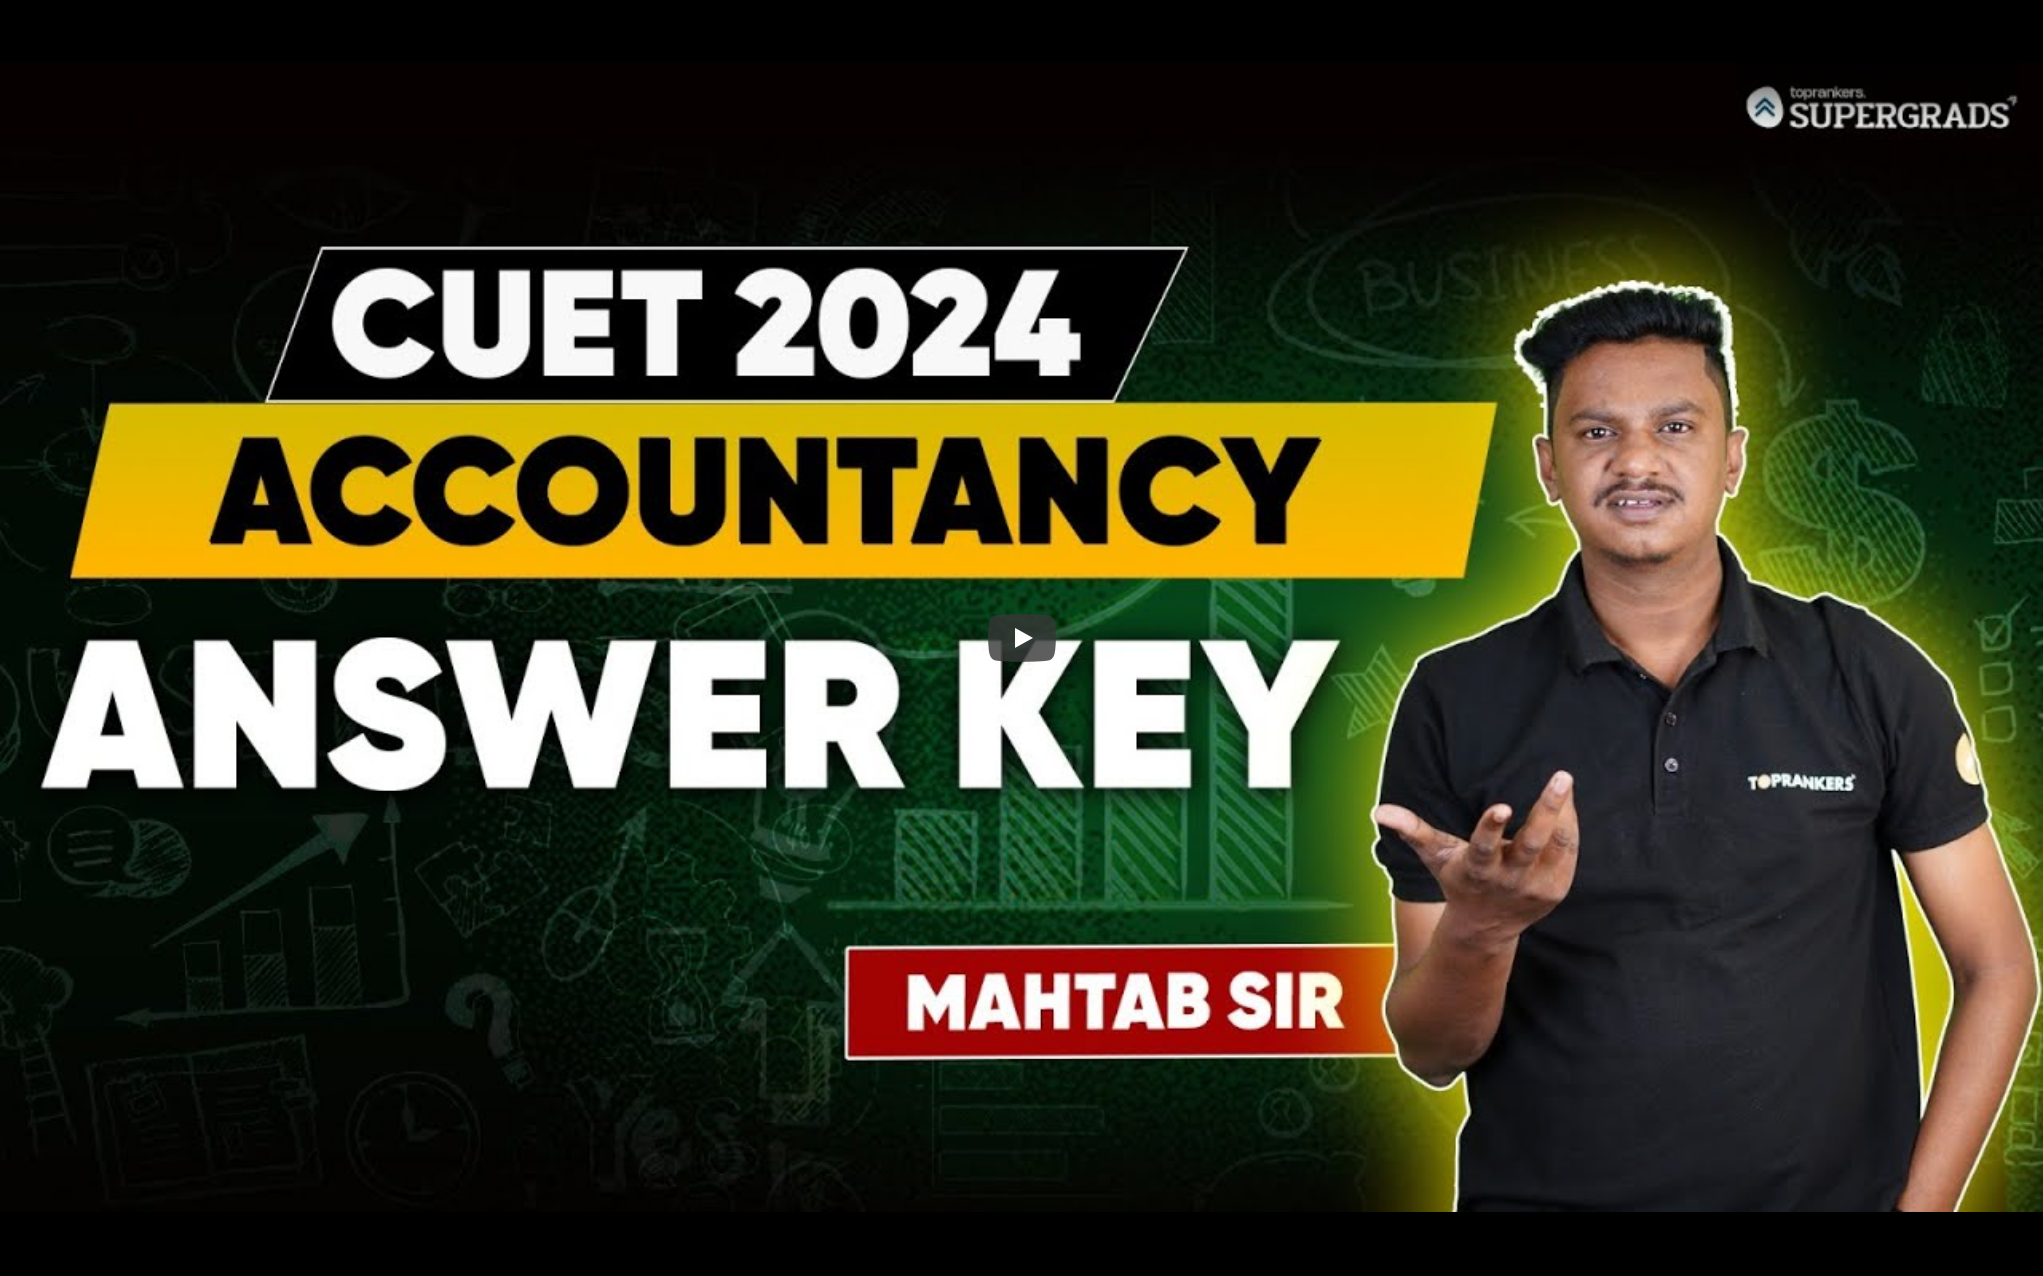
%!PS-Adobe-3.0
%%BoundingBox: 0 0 2043 1276
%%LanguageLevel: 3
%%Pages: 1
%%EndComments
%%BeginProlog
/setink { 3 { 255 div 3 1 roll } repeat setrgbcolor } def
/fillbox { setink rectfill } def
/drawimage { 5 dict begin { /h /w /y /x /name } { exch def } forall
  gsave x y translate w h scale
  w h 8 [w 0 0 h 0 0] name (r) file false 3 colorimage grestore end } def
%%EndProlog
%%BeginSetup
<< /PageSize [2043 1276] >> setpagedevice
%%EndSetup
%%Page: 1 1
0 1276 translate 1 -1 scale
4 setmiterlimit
0 0 2043 1276 0 0 0 fillbox
(assets/img1.rgb) 0 63 2043 1149 drawimage
(assets/img2.rgb) 1737 63 281 66 drawimage
(assets/img3.rgb) 988 614 68 48 drawimage
showpage
%%EOF
